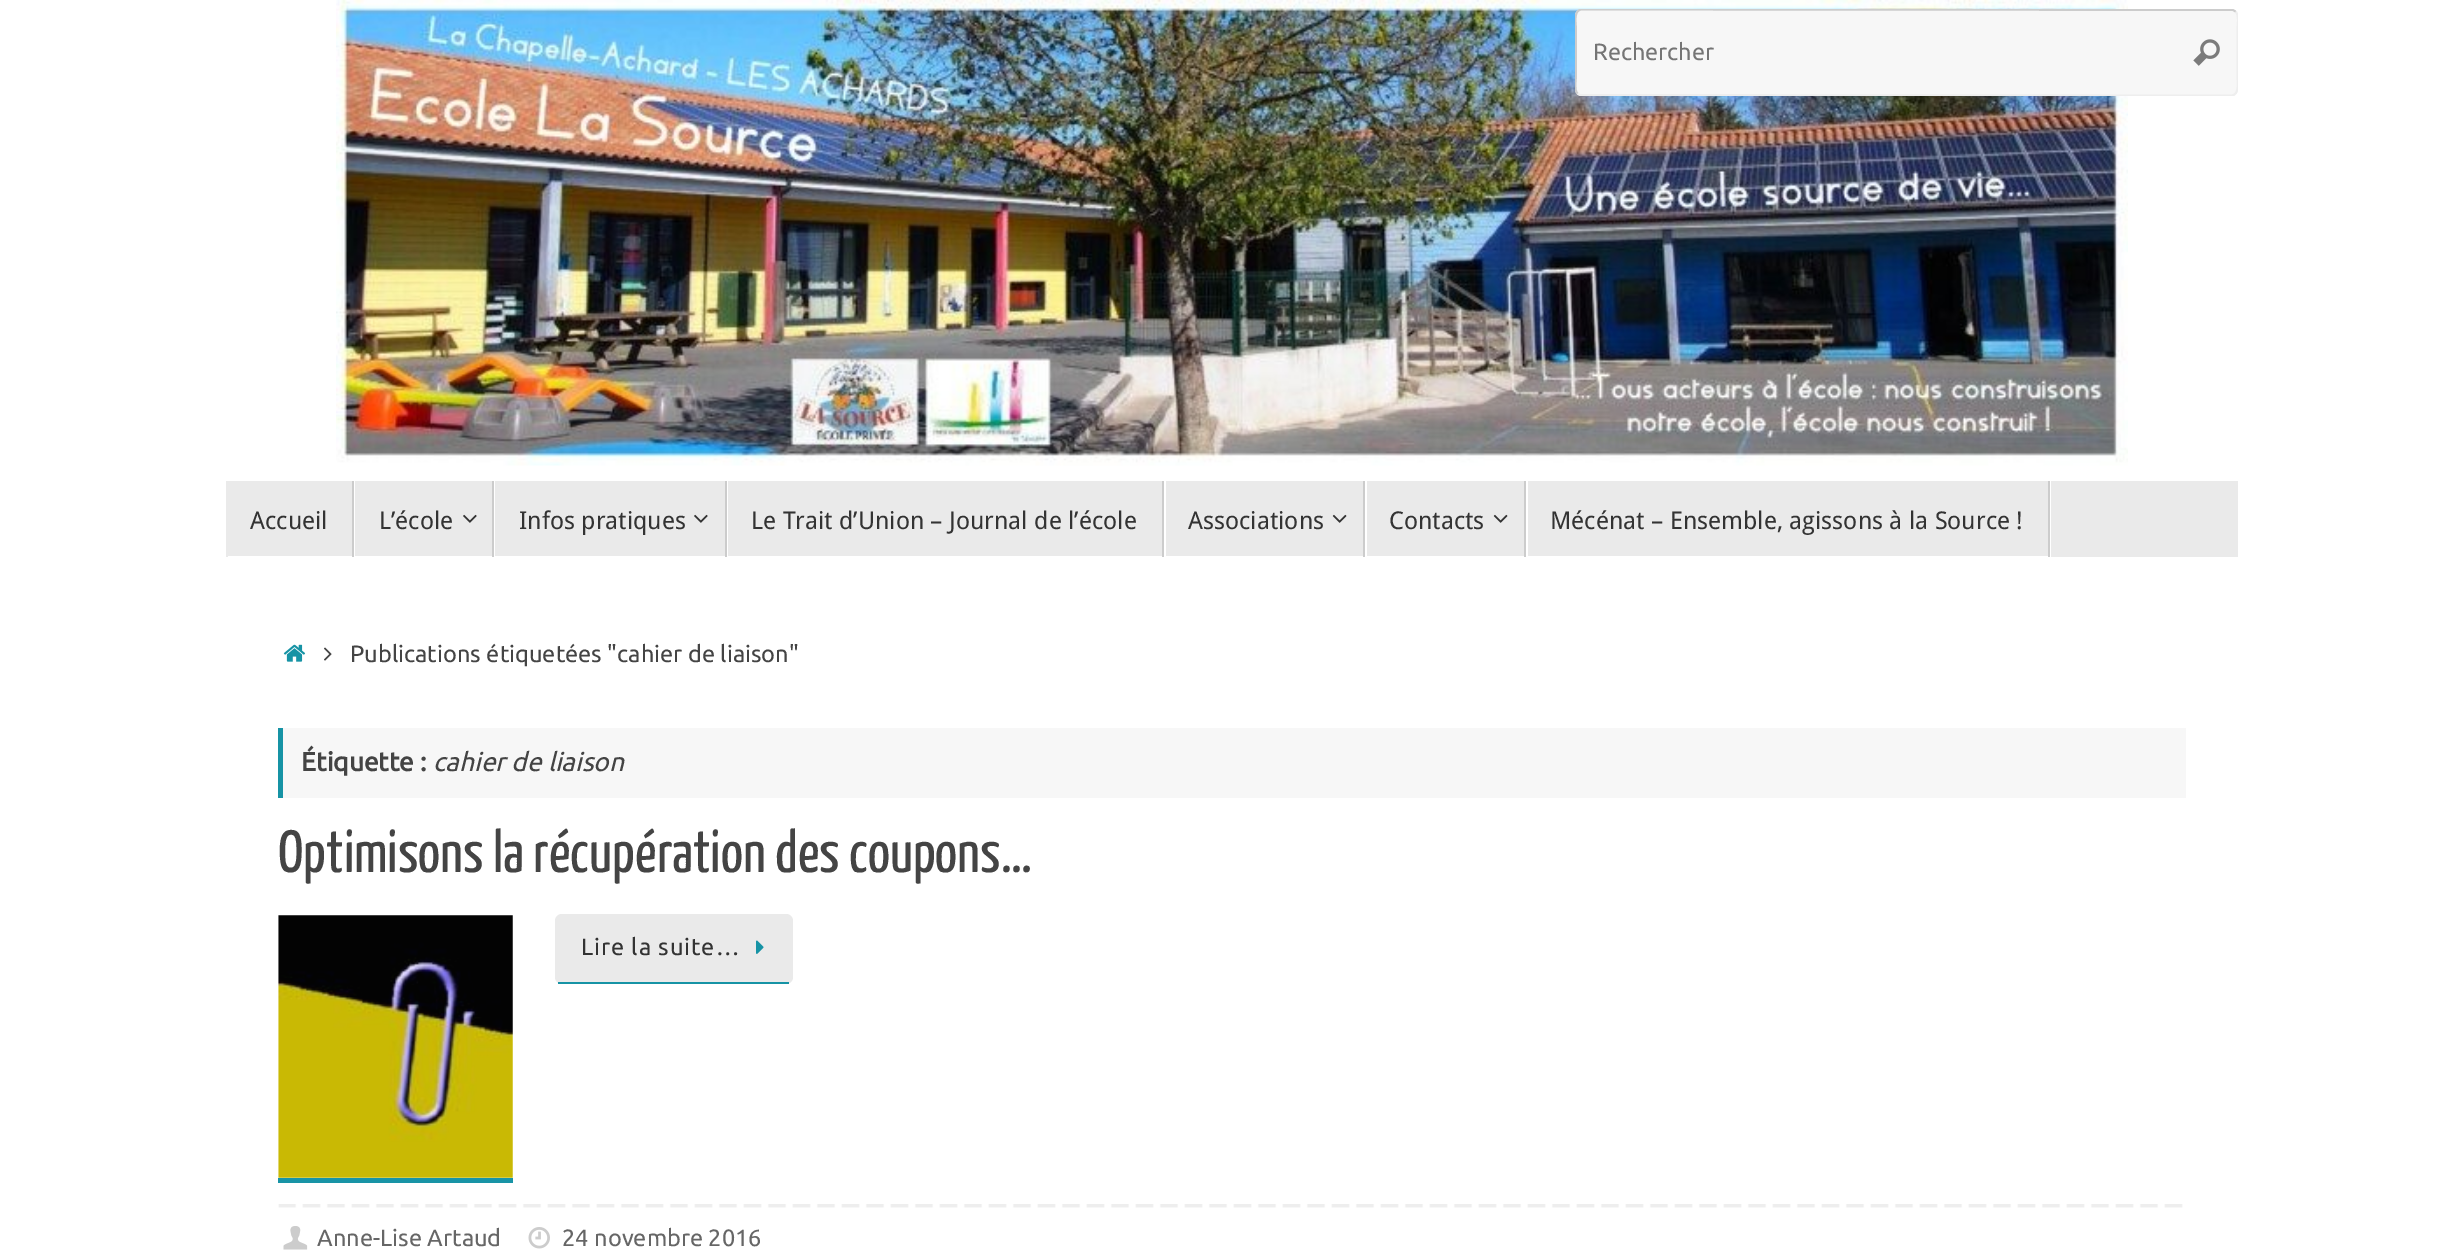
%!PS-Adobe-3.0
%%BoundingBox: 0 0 2464 1259
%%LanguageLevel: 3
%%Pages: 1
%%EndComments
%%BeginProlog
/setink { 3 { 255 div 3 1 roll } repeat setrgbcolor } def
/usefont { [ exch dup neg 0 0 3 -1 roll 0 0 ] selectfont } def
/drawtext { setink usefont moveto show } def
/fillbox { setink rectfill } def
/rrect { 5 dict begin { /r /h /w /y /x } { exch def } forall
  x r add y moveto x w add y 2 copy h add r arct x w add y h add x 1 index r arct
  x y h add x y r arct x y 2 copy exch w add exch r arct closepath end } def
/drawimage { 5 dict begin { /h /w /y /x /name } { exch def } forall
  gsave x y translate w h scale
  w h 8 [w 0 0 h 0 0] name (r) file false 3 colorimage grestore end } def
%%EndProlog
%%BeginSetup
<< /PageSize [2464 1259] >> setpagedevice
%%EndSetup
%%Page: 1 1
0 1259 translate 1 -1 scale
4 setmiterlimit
0 0 2464 1259 255 255 255 fillbox
(assets/img1.rgb) 336 0 1792 466 drawimage
247 247 247 setink
1575 9 663 87 7 rrect fill
gsave
1575 9 663 87 rectclip
238 238 238 setink
1.8 setlinewidth
2235.5 11.5 moveto 2239.5 15 2237.5 25.5 2237.5 28 curveto 2237.5 77 lineto 2237.5 81 2240 95.5 2231 95.5 curveto 1580 95 lineto 1577.5 93.5 lineto stroke
204 204 204 setink
1577.5 93.5 moveto 1574 90 1576 79.5 1576 77 curveto 1576 28 lineto 1576 24 1573 9.5 1582 9.5 curveto 2233 10 lineto 2235.5 11.5 lineto stroke
grestore
(Rechercher) 1593 60 /Ubuntu-Regular 23.5 117 117 117 drawtext
(assets/img2.rgb) 2193 39 27 27 drawimage
226 481 2012 76 234 234 234 fillbox
255 255 255 setink
228 481 moveto 354 481 lineto 354 556 lineto 228 556 lineto 228 557 lineto 355 557 lineto 355 481 lineto closepath fill
352 481 2 76 204 204 204 fillbox
(Accueil) 250 529 /DroidSans-Regular 24.5 51 51 51 drawtext
255 255 255 setink
355 481 moveto 494 481 lineto 494 556 lineto 355 556 lineto 355 557 lineto 495 557 lineto 495 481 lineto closepath fill
492 481 2 76 204 204 204 fillbox
(L’école) 379 529 /DroidSans-Regular 24.5 51 51 51 drawtext
(assets/img3.rgb) 463 514 14 9 drawimage
255 255 255 setink
495 481 moveto 726 481 lineto 726 556 lineto 495 556 lineto 495 557 lineto 728 557 lineto 728 481 lineto closepath fill
725 481 2 76 204 204 204 fillbox
(Infos pratiques) 519 529 /DroidSans-Regular 24.5 51 51 51 drawtext
(assets/img3.rgb) 694 514 14 9 drawimage
255 255 255 setink
728 481 moveto 1164 481 lineto 1164 556 lineto 728 556 lineto 728 557 lineto 1166 557 lineto 1166 481 lineto closepath fill
1162 481 2 76 204 204 204 fillbox
(Le Trait d’Union – Journal de l’école) 751 529 /DroidSans-Regular 24.5 51 51 51 drawtext
255 255 255 setink
1166 481 moveto 1365 481 lineto 1365 556 lineto 1166 556 lineto 1166 557 lineto 1367 557 lineto 1367 481 lineto closepath fill
1363 481 2 76 204 204 204 fillbox
(Associations) 1188 529 /DroidSans-Regular 24.5 51 51 51 drawtext
(assets/img4.rgb) 1332 514 15 9 drawimage
255 255 255 setink
1367 481 moveto 1526 481 lineto 1526 556 lineto 1367 556 lineto 1367 557 lineto 1528 557 lineto 1528 481 lineto closepath fill
1524 481 2 76 204 204 204 fillbox
(Contacts) 1389 529 /DroidSans-Regular 24.5 51 51 51 drawtext
(assets/img4.rgb) 1493 514 15 9 drawimage
255 255 255 setink
1528 481 moveto 2049 481 lineto 2049 556 lineto 1528 556 lineto 1528 557 lineto 2051 557 lineto 2051 481 lineto closepath fill
2048 481 2 76 204 204 204 fillbox
(Mécénat – Ensemble, agissons à la Source !) 1550 529 /DroidSans-Regular 24.5 51 51 51 drawtext
(assets/img5.rgb) 283 644 23 18 drawimage
(assets/img6.rgb) 324 647 8 14 drawimage
(Publications étiquetées "cahier de liaison") 350 662 /Ubuntu-Regular 23.6 68 68 68 drawtext
283 728 1903 70 247 247 247 fillbox
278 728 5 70 22 147 165 fillbox
(Étiquette :) 301 771 /Ubuntu-Bold 26.25 68 68 68 drawtext
(cahier de liaison) 433 771 /Ubuntu-Italic 26.25 68 68 68 drawtext
(Optimisons la récupération des coupons…) 278 872 /YanoneKaffeesatz-Regular 59.5 68 68 68 drawtext
278 1178 235 5 24 148 166 fillbox
(assets/img7.rgb) 278 915 235 263 drawimage
234 234 234 setink
555 914 238 70 7 rrect fill
558 982 231 2 22 147 165 fillbox
/Ubuntu-Regular 23.6 usefont
51 51 51 setink
581 955 moveto 0.9 0 (Lire la suite…) ashow
(assets/img8.rgb) 756 940 8 14 drawimage
(assets/img9.rgb) 278 1204 1905 4 drawimage
(assets/img10.rgb) 283 1226 25 24 drawimage
(Anne-Lise Artaud) 317 1246 /Ubuntu-Regular 23.6 102 102 102 drawtext
(assets/img11.rgb) 528 1227 22 22 drawimage
(24 novembre 2016) 562 1246 /Ubuntu-Regular 23.6 102 102 102 drawtext
showpage
%%EOF
